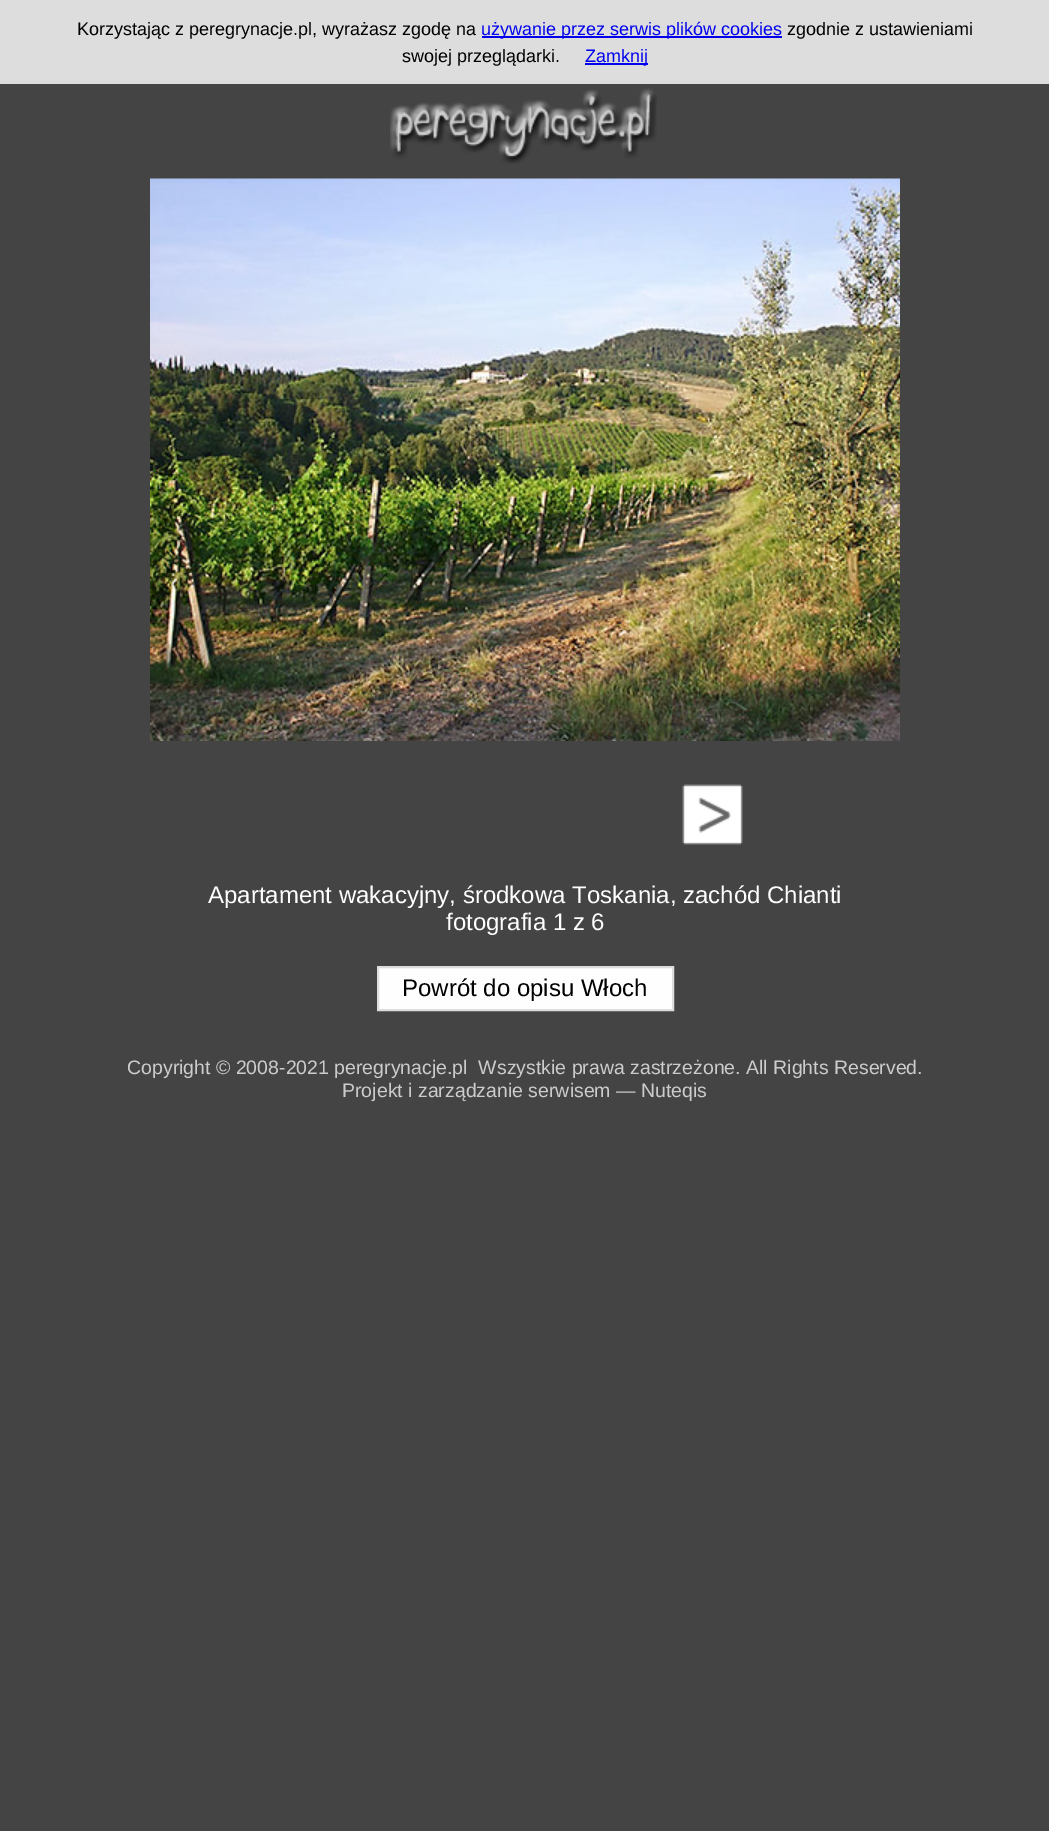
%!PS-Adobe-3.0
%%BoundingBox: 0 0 1049 1831
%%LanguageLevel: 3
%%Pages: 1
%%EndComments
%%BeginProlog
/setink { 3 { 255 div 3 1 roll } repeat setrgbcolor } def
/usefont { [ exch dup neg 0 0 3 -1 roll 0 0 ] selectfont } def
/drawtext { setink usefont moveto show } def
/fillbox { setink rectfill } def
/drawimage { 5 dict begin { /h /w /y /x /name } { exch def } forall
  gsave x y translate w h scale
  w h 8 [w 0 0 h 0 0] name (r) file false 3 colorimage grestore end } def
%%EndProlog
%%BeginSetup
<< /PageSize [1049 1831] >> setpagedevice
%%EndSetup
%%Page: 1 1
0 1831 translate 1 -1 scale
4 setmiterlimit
0 0 1049 1831 68 68 68 fillbox
0 0 1049 84 221 221 221 fillbox
(Korzystając z peregrynacje.pl, wyrażasz zgodę na) 77 35 /LiberationSans-Regular 18 0 0 0 drawtext
482 36 300 2 0 0 238 fillbox
(używanie przez serwis plików cookies) 481 35 /LiberationSans-Regular 18 0 0 238 drawtext
(zgodnie z ustawieniami) 787 35 /LiberationSans-Regular 18 0 0 0 drawtext
(swojej przeglądarki.) 402 62 /LiberationSans-Regular 18 0 0 0 drawtext
585 63 63 2 0 0 238 fillbox
(Zamknij) 585 62 /LiberationSans-Regular 18 0 0 238 drawtext
(assets/img1.rgb) 390 88 267 76 drawimage
(assets/img2.rgb) 150 178 750 563 drawimage
(assets/img3.rgb) 682 784 61 61 drawimage
(Apartament wakacyjny, środkowa Toskania, zachód Chianti) 208 903 /LiberationSans-Regular 24 255 255 255 drawtext
(fotografia 1 z 6) 446 930 /LiberationSans-Regular 24 255 255 255 drawtext
254 254 254 setink
378 967 moveto 673 967 lineto 673 1010 lineto 378 1010 lineto closepath gsave fill grestore
221 221 221 setink
2 setlinewidth
stroke
(Powrót do opisu Włoch) 402 996 /LiberationSans-Regular 24 0 0 0 drawtext
(Copyright © 2008-2021 peregrynacje.pl  Wszystkie prawa zastrzeżone. All Rights Reserved.) 127 1074 /LiberationSans-Regular 19.5 204 204 204 drawtext
(Projekt i zarządzanie serwisem — Nuteqis) 342 1097 /LiberationSans-Regular 19.5 204 204 204 drawtext
showpage
%%EOF
